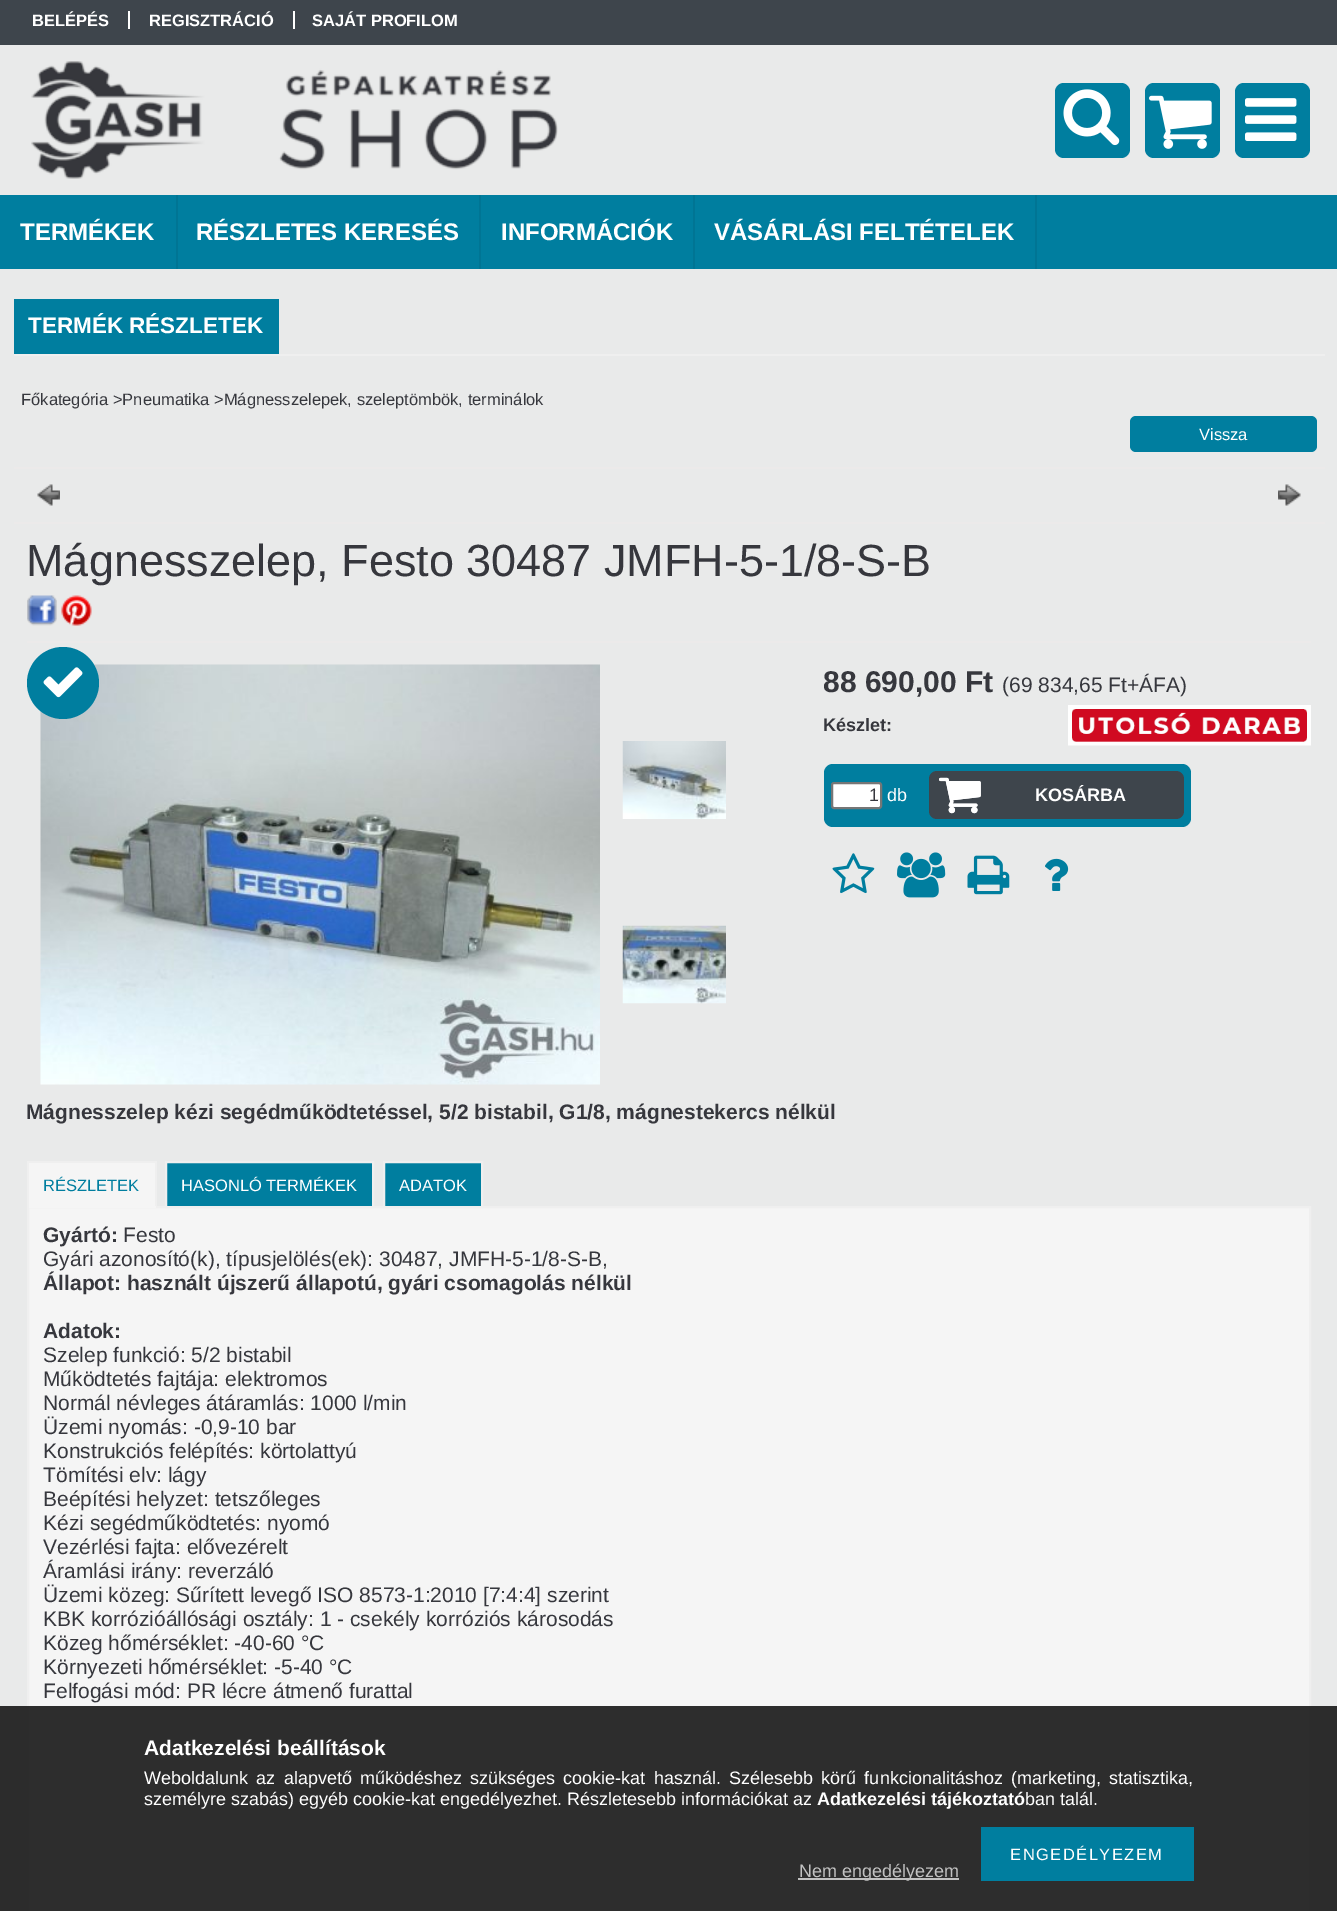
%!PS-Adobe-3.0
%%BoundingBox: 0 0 1337 1911
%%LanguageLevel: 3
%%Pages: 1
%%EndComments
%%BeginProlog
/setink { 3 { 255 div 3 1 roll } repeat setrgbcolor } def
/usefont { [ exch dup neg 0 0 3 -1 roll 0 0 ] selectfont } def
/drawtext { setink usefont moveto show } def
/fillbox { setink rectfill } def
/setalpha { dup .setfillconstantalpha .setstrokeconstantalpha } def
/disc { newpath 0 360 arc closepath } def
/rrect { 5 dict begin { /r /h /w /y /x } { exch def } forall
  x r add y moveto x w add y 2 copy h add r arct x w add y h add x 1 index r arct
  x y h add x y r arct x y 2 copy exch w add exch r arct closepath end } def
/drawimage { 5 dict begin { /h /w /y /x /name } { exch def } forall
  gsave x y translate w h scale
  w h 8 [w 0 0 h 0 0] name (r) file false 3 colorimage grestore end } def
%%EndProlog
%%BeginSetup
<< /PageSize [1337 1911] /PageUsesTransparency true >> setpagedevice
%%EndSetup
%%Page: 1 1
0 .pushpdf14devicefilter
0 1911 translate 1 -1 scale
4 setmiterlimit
0 0 1337 1911 233 234 234 fillbox
0 0 1337 45 62 69 76 fillbox
(BELÉPÉS) 32 26 /LiberationSans-Bold 16.5 255 255 255 drawtext
128 11 2 18 255 255 255 fillbox
(REGISZTRÁCIÓ) 149 26 /LiberationSans-Bold 16.5 255 255 255 drawtext
293 11 2 18 255 255 255 fillbox
(SAJÁT PROFILOM) 312 26 /LiberationSans-Bold 16.5 255 255 255 drawtext
(assets/img1.rgb) 31 61 527 118 drawimage
0 126 159 setink
1055 83 75 75 9 rrect fill
(assets/img2.rgb) 1063 89 57 57 drawimage
1145 83 75 75 9 rrect fill
(assets/img3.rgb) 1149 95 63 54 drawimage
1235 83 75 75 9 rrect fill
(assets/img4.rgb) 1245 98 52 43 drawimage
0 195 1337 74 0 126 159 fillbox
0.07 setalpha
176 195 2 74 0 0 0 fillbox
1 setalpha
(TERMÉKEK) 20 240 /LiberationSans-Bold 24 255 255 255 drawtext
0.07 setalpha
479 195 2 74 0 0 0 fillbox
1 setalpha
(RÉSZLETES KERESÉS) 196 240 /LiberationSans-Bold 24 255 255 255 drawtext
0.07 setalpha
693 195 2 74 0 0 0 fillbox
1 setalpha
(INFORMÁCIÓK) 501 240 /LiberationSans-Bold 24 255 255 255 drawtext
0.07 setalpha
1035 195 2 74 0 0 0 fillbox
1 setalpha
(VÁSÁRLÁSI FELTÉTELEK) 714 240 /LiberationSans-Bold 24 255 255 255 drawtext
14 354 1311 2 239 239 239 fillbox
14 299 265 55 0 126 159 fillbox
(TERMÉK RÉSZLETEK) 28 333 /LiberationSans-Bold 22.5 255 255 255 drawtext
(Főkategória >Pneumatika >Mágnesszelepek, szeleptömbök, terminálok) 21 405 /LiberationSans-Regular 16.5 54 55 61 drawtext
0 126 159 setink
1130 416 187 36 6 rrect fill
(Vissza) 1199 440 /LiberationSans-Regular 16.5 255 255 255 drawtext
14 467 1311 2 236 234 234 fillbox
(assets/img5.rgb) 37 484 23 22 drawimage
(assets/img6.rgb) 1278 484 23 22 drawimage
14 522 1311 2 236 234 234 fillbox
27 641 1284 2 236 234 234 fillbox
(Mágnesszelep, Festo 30487 JMFH-5-1/8-S-B) 26 576 /LiberationSans-Regular 45 54 55 61 drawtext
(assets/img7.rgb) 27 595 30 31 drawimage
(assets/img8.rgb) 61 595 31 31 drawimage
(assets/img10.rgb) 40 664 560 421 drawimage
0 126 159 setink
63 683 36 disc fill
(assets/img9.rgb) 43 667 40 31 drawimage
(assets/img11.rgb) 622 741 104 78 drawimage
(assets/img12.rgb) 622 925 104 79 drawimage
(88 690,00 Ft) 823 692 /LiberationSans-Bold 30 54 55 61 drawtext
(\(69 834,65 Ft+ÁFA\)) 1002 692 /LiberationSans-Regular 21 54 55 61 drawtext
(Készlet:) 823 731 /LiberationSans-Bold 18 54 55 61 drawtext
(assets/img13.rgb) 1068 705 243 41 drawimage
0 126 159 setink
824 764 367 63 9 rrect fill
255 255 255 setink
832 783 49 25 2 rrect gsave fill grestore
118 118 118 setink
2 setlinewidth
stroke
(1) 869 801 /LiberationSans-Regular 18 54 55 61 drawtext
(db) 887 801 /LiberationSans-Regular 18 255 255 255 drawtext
62 69 76 setink
929 771 255 48 8 rrect fill
(assets/img14.rgb) 939 777 42 37 drawimage
(assets/img15.rgb) 939 777 42 37 drawimage
(KOSÁRBA) 1035 801 /LiberationSans-Bold 18 255 255 255 drawtext
(assets/img16.rgb) 832 853 43 41 drawimage
(assets/img17.rgb) 897 852 49 46 drawimage
(assets/img18.rgb) 967 855 43 40 drawimage
(assets/img19.rgb) 1045 858 24 33 drawimage
(Mágnesszelep kézi segédműködtetéssel, 5/2 bistabil, G1/8, mágnestekercs nélkül) 26 1119 /LiberationSans-Bold 21 54 55 61 drawtext
29 1163 126 43 245 245 245 fillbox
27 1161 129 2 239 239 239 fillbox
245 245 245 setink
28 1207 moveto 1310 1207 lineto 1310 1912 lineto 28 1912 lineto closepath gsave fill grestore
239 239 239 setink
stroke
155 1161 2 47 239 239 239 fillbox
27 1206 129 2 245 245 245 fillbox
27 1161 2 47 239 239 239 fillbox
(RÉSZLETEK) 43 1191 /LiberationSans-Regular 16.5 0 126 159 drawtext
166 1162 moveto 373 1162 lineto 373 1207 lineto 166 1207 lineto closepath gsave fill grestore
239 239 239 setink
stroke
(HASONLÓ TERMÉKEK) 181 1191 /LiberationSans-Regular 16.5 255 255 255 drawtext
0 126 159 setink
384 1162 moveto 482 1162 lineto 482 1207 lineto 384 1207 lineto closepath gsave fill grestore
239 239 239 setink
stroke
(ADATOK) 399 1191 /LiberationSans-Regular 16.5 255 255 255 drawtext
(Gyártó:) 43 1242 /LiberationSans-Bold 21 54 55 61 drawtext
(Festo) 123 1242 /LiberationSans-Regular 21 54 55 61 drawtext
(Gyári azonosító\(k\), típusjelölés\(ek\): 30487, JMFH-5-1/8-S-B,) 43 1266 /LiberationSans-Regular 21 54 55 61 drawtext
(Állapot: használt újszerű állapotú, gyári csomagolás nélkül) 43 1290 /LiberationSans-Bold 21 54 55 61 drawtext
(Adatok:) 43 1338 /LiberationSans-Bold 21 54 55 61 drawtext
(Szelep funkció: 5/2 bistabil) 43 1362 /LiberationSans-Regular 21 54 55 61 drawtext
(Működtetés fajtája: elektromos) 43 1386 /LiberationSans-Regular 21 54 55 61 drawtext
(Normál névleges átáramlás: 1000 l/min) 43 1410 /LiberationSans-Regular 21 54 55 61 drawtext
(Üzemi nyomás: -0,9-10 bar) 43 1434 /LiberationSans-Regular 21 54 55 61 drawtext
(Konstrukciós felépítés: körtolattyú) 43 1458 /LiberationSans-Regular 21 54 55 61 drawtext
(Tömítési elv: lágy) 43 1482 /LiberationSans-Regular 21 54 55 61 drawtext
(Beépítési helyzet: tetszőleges) 43 1506 /LiberationSans-Regular 21 54 55 61 drawtext
(Kézi segédműködtetés: nyomó) 43 1530 /LiberationSans-Regular 21 54 55 61 drawtext
(Vezérlési fajta: elővezérelt) 43 1554 /LiberationSans-Regular 21 54 55 61 drawtext
(Áramlási irány: reverzáló) 43 1578 /LiberationSans-Regular 21 54 55 61 drawtext
(Üzemi közeg: Sűrített levegő ISO 8573-1:2010 [7:4:4] szerint) 43 1602 /LiberationSans-Regular 21 54 55 61 drawtext
(KBK korrózióállósági osztály: 1 - csekély korróziós károsodás) 43 1626 /LiberationSans-Regular 21 54 55 61 drawtext
(Közeg hőmérséklet: -40-60 °C) 43 1650 /LiberationSans-Regular 21 54 55 61 drawtext
(Környezeti hőmérséklet: -5-40 °C) 43 1674 /LiberationSans-Regular 21 54 55 61 drawtext
(Felfogási mód: PR lécre átmenő furattal) 43 1698 /LiberationSans-Regular 21 54 55 61 drawtext
0.95 setalpha
0 1706 1337 205 34 34 34 fillbox
1 setalpha
(Adatkezelési beállítások) 144 1755 /LiberationSans-Bold 21 255 255 255 drawtext
/LiberationSans-Regular 18 usefont
144 1784 moveto 3.25 0 32 (Weboldalunk az alapvető működéshez szükséges cookie-kat használ. Szélesebb körű funkcionalitáshoz \(marketing, statisztika,) widthshow
(személyre szabás\) egyéb cookie-kat engedélyezhet. Részletesebb információkat az) 144 1805 /LiberationSans-Regular 18 255 255 255 drawtext
(Adatkezelési tájékoztató) 817 1805 /LiberationSans-Bold 18 255 255 255 drawtext
(ban talál.) 1025 1805 /LiberationSans-Regular 18 255 255 255 drawtext
981 1827 213 54 0 126 159 fillbox
/LiberationSans-Regular 16.5 usefont
255 255 255 setink
1010 1860 moveto 1.5 0 (ENGEDÉLYEZEM) ashow
0.7 setalpha
798 1878 161 2 255 255 255 fillbox
1 setalpha
(Nem engedélyezem) 799 1877 /LiberationSans-Regular 18 193 193 193 drawtext
.poppdf14devicefilter showpage
%%EOF
